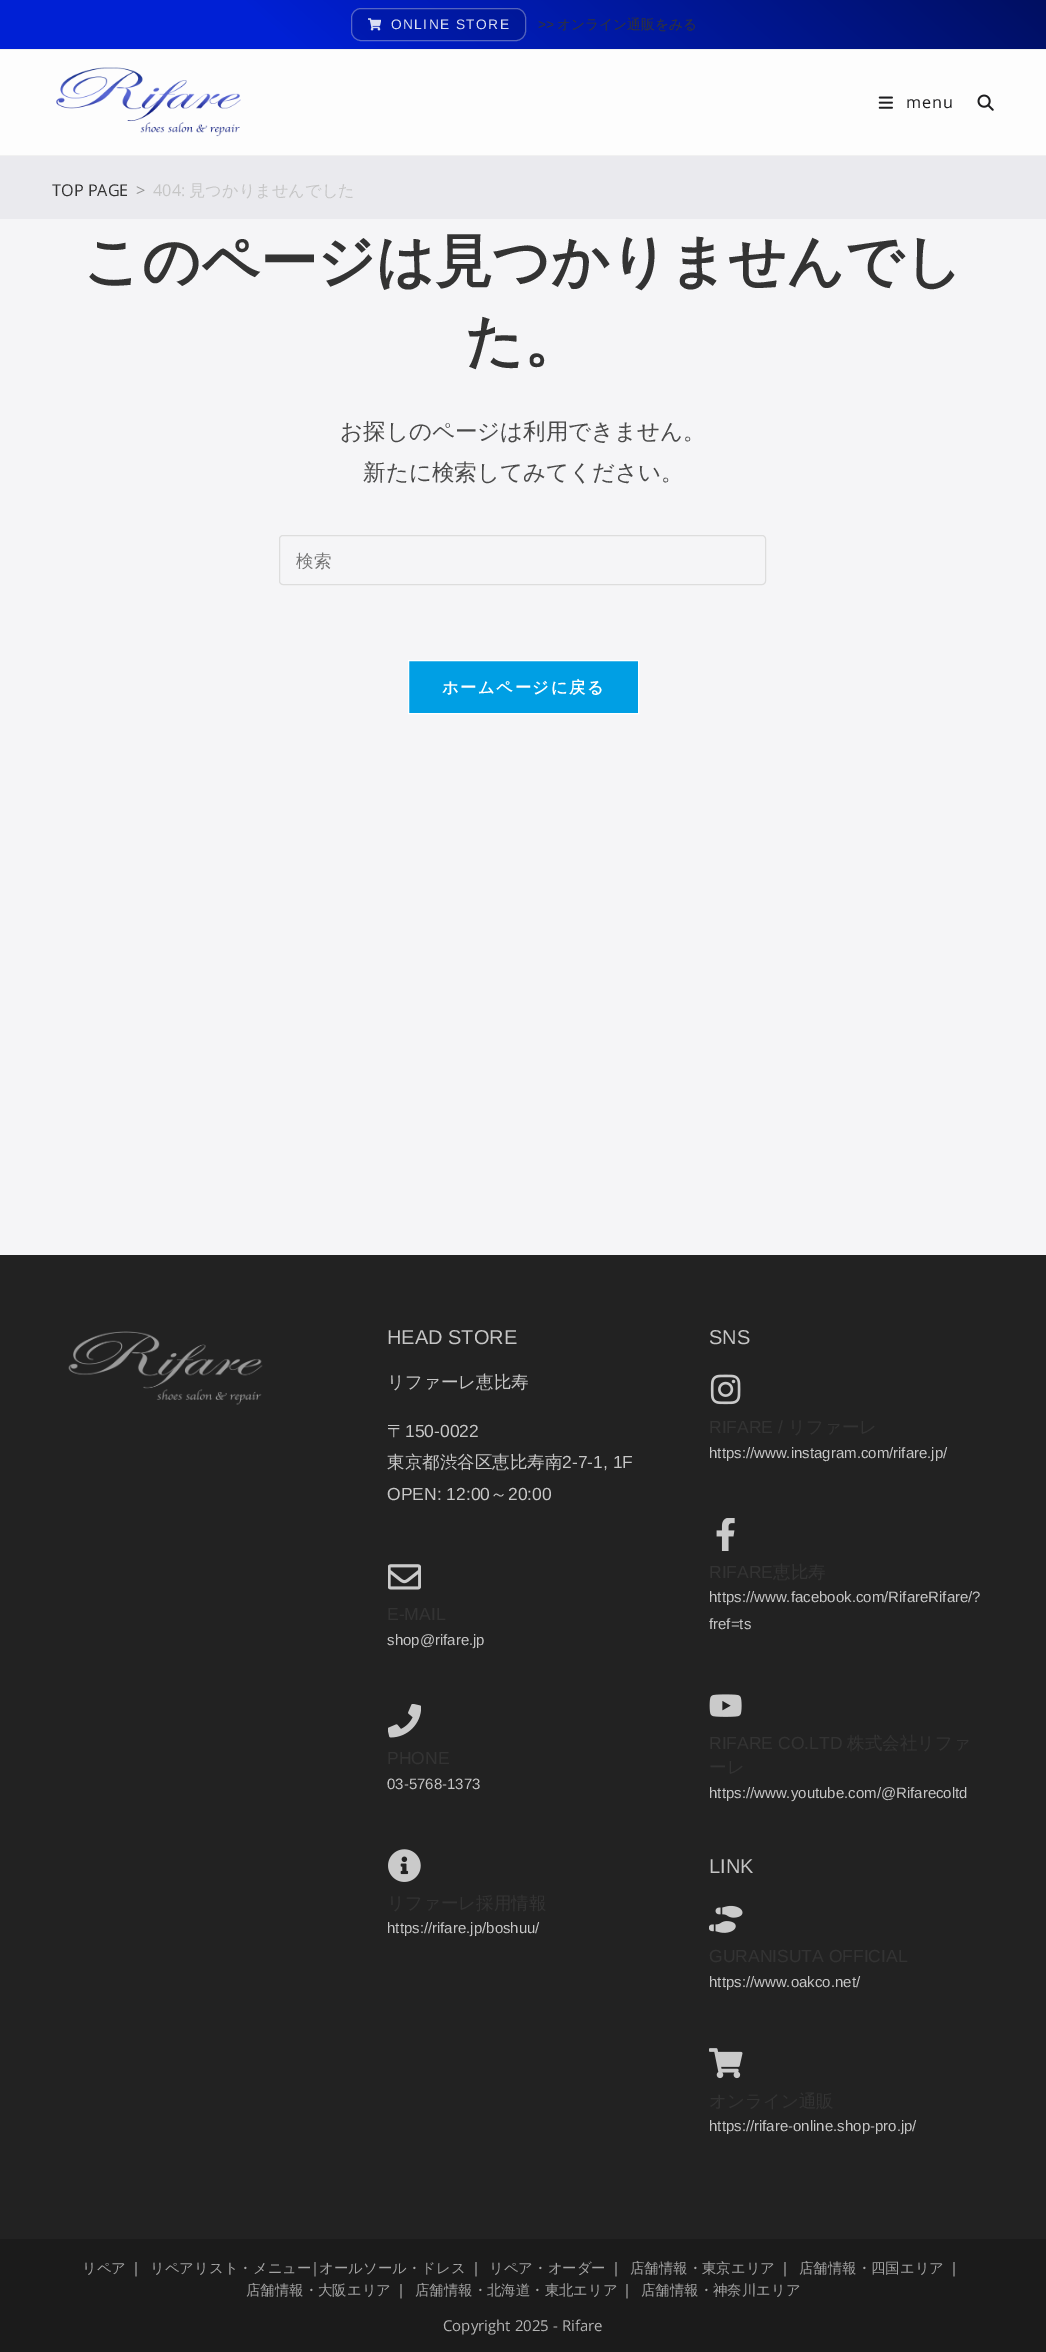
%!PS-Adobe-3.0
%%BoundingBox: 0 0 1046 2352
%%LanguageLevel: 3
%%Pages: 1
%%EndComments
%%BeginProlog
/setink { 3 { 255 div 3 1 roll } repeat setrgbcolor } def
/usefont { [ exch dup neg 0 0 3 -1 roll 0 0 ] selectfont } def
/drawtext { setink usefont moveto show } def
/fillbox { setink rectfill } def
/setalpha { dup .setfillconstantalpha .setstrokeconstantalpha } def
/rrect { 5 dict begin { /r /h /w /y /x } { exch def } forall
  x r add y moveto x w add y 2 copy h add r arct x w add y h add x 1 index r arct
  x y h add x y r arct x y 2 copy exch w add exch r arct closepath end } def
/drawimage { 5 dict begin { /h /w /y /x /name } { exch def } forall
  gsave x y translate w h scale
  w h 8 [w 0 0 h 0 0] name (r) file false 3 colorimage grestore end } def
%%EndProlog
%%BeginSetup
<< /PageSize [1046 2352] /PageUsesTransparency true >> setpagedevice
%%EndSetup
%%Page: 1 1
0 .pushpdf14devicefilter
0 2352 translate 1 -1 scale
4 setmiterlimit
0 0 1046 2352 245 245 247 fillbox
0 49 1046 1 241 241 241 fillbox
gsave 0 0 moveto 1046 0 lineto 1046 49 lineto 0 49 lineto closepath clip newpath
<< /ShadingType 2 /ColorSpace /DeviceRGB /Coords [760 -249 286 297] /Extend [true true] /Function << /FunctionType 3 /Domain [0 1] /Functions [<< /FunctionType 2 /Domain [0 1] /C0 [0 0.059 0.38] /C1 [0 0.125 0.835] /N 1 >> << /FunctionType 2 /Domain [0 1] /C0 [0 0.125 0.835] /C1 [0 0.125 0.835] /N 1 >>] /Bounds [0.73] /Encode [0 1 0 1] >> >> shfill grestore
0.12 setalpha
0 0 0 setink
351 8 175 33 10 rrect fill
0.33 setalpha
255 255 255 setink
351.5 8.5 174 32 9.5 rrect stroke
1 setalpha
(assets/img1.rgb) 368 18 13 13 drawimage
/LiberationSans-Regular 13.75 usefont
219 223 242 setink
391 29 moveto 1.4 0 (ONLINE STORE) ashow
(>>) 538 29 /LiberationSans-Regular 13.75 51 51 51 drawtext
(オンライン通販をみる) 557 29 /WenQuanYiZenHei-Medium 13.75 51 51 51 drawtext
0 50 1046 105 253 253 253 fillbox
0 155 1046 1 241 241 241 fillbox
(assets/img2.rgb) 56 67 185 70 drawimage
(assets/img3.rgb) 878 96 15 13 drawimage
/OpenSans-Regular 16.25 usefont
29 29 31 setink
906 108 moveto 1 0 (menu) ashow
(assets/img4.rgb) 977 94 17 17 drawimage
0 156 1046 63 234 234 238 fillbox
(TOP PAGE) 52 196 /OpenSans-Regular 16.25 51 51 51 drawtext
(>) 136 196 /OpenSans-Regular 16.25 147 147 147 drawtext
(404:) 153 196 /OpenSans-Regular 16.25 198 198 198 drawtext
(見つかりませんでした) 189 196 /WenQuanYiZenHei-Medium 16.25 198 198 198 drawtext
(このページは見つかりませんでし) 83 281 /WenQuanYiZenHei-Bold 57.5 51 51 51 drawtext
(た。) 465 361 /WenQuanYiZenHei-Bold 57.5 51 51 51 drawtext
(お探しのページは利用できません。) 340 439 /WenQuanYiZenHei-Medium 22.5 74 74 74 drawtext
(新たに検索してみてください。) 363 480 /WenQuanYiZenHei-Medium 22.5 74 74 74 drawtext
221 221 221 setink
279.5 535.5 486 49 3.5 rrect stroke
(検索) 296 567 /WenQuanYiZenHei-Medium 17.5 117 117 117 drawtext
0 159 228 setink
408.5 660.5 moveto 638.5 660.5 lineto 638.5 713.5 lineto 408.5 713.5 lineto closepath gsave fill grestore
255 255 255 setink
stroke
/WenQuanYiZenHei-Bold 16.25 usefont
442 693 moveto 1.6 0 (ホームページに戻る) ashow
0 1255 1046 984 34 34 34 fillbox
(assets/img5.rgb) 68 1331 195 74 drawimage
(HEAD STORE) 387 1344 /LiberationSans-Regular 20 198 198 198 drawtext
(リファーレ恵比寿) 387 1388 /WenQuanYiZenHei-Medium 17.5 198 198 198 drawtext
(〒) 387 1437 /WenQuanYiZenHei-Medium 17.5 198 198 198 drawtext
(150-0022) 405 1437 /LiberationSans-Regular 17.5 198 198 198 drawtext
(東京都渋谷区恵比寿南) 387 1468 /WenQuanYiZenHei-Medium 17.5 198 198 198 drawtext
(2-7-1, 1F) 562 1468 /LiberationSans-Regular 17.5 198 198 198 drawtext
(OPEN: 12:00) 387 1500 /LiberationSans-Regular 17.5 198 198 198 drawtext
(～) 490 1500 /WenQuanYiZenHei-Medium 17.5 198 198 198 drawtext
(20:00) 508 1500 /LiberationSans-Regular 17.5 198 198 198 drawtext
(assets/img6.rgb) 388 1564 33 26 drawimage
(E-MAIL) 387 1620 /LiberationSans-Regular 17.5 51 51 51 drawtext
(shop@rifare.jp) 387 1645 /LiberationSans-Regular 15 198 198 198 drawtext
(assets/img7.rgb) 388 1704 33 34 drawimage
(PHONE) 387 1764 /LiberationSans-Regular 17.5 51 51 51 drawtext
(03-5768-1373) 387 1789 /LiberationSans-Regular 15 198 198 198 drawtext
(assets/img8.rgb) 388 1849 33 33 drawimage
(リファーレ採用情報) 387 1909 /WenQuanYiZenHei-Medium 17.5 51 51 51 drawtext
(https://rifare.jp/boshuu/) 387 1933 /LiberationSans-Regular 15 198 198 198 drawtext
(SNS) 709 1344 /LiberationSans-Regular 20 198 198 198 drawtext
(assets/img9.rgb) 710 1374 31 31 drawimage
(RIFARE /) 709 1433 /LiberationSans-Regular 17.5 51 51 51 drawtext
(リファーレ) 788 1433 /WenQuanYiZenHei-Medium 17.5 51 51 51 drawtext
(https://www.instagram.com/rifare.jp/) 709 1458 /LiberationSans-Regular 15 198 198 198 drawtext
(assets/img10.rgb) 716 1518 19 33 drawimage
(RIFARE) 709 1578 /LiberationSans-Regular 17.5 51 51 51 drawtext
(恵比寿) 773 1578 /WenQuanYiZenHei-Medium 17.5 51 51 51 drawtext
(https://www.facebook.com/RifareRifare/?) 709 1602 /LiberationSans-Regular 15 198 198 198 drawtext
(fref=ts) 709 1629 /LiberationSans-Regular 15 198 198 198 drawtext
(assets/img11.rgb) 709 1694 33 23 drawimage
(RIFARE CO.LTD) 709 1749 /LiberationSans-Regular 17.5 51 51 51 drawtext
(株式会社リファ) 847 1749 /WenQuanYiZenHei-Medium 17.5 51 51 51 drawtext
(ーレ) 709 1773 /WenQuanYiZenHei-Medium 17.5 51 51 51 drawtext
(https://www.youtube.com/@Rifarecoltd) 709 1798 /LiberationSans-Regular 15 198 198 198 drawtext
(LINK) 709 1873 /LiberationSans-Regular 20 198 198 198 drawtext
(assets/img12.rgb) 709 1905 34 28 drawimage
(GURANISUTA OFFICIAL) 709 1962 /LiberationSans-Regular 17.5 51 51 51 drawtext
(https://www.oakco.net/) 709 1987 /LiberationSans-Regular 15 198 198 198 drawtext
(assets/img13.rgb) 709 2048 34 31 drawimage
(オンライン通販) 709 2107 /WenQuanYiZenHei-Medium 17.5 51 51 51 drawtext
(https://rifare-online.shop-pro.jp/) 709 2131 /LiberationSans-Regular 15 198 198 198 drawtext
0 2239 1046 113 27 27 27 fillbox
(リペア) 82 2273 /WenQuanYiZenHei-Medium 14.4 164 164 164 drawtext
(|) 132 2273 /OpenSans-Regular 14.4 180 180 180 drawtext
(リペアリスト・メニュー) 150 2273 /WenQuanYiZenHei-Medium 14.4 164 164 164 drawtext
(|) 311 2273 /OpenSans-Regular 14.4 164 164 164 drawtext
(オールソール・ドレス) 319 2273 /WenQuanYiZenHei-Medium 14.4 164 164 164 drawtext
(|) 472 2273 /OpenSans-Regular 14.4 180 180 180 drawtext
(リペア・オーダー) 489 2273 /WenQuanYiZenHei-Medium 14.4 164 164 164 drawtext
(|) 612 2273 /OpenSans-Regular 14.4 180 180 180 drawtext
(店舗情報・東京エリア) 630 2273 /WenQuanYiZenHei-Medium 14.4 164 164 164 drawtext
(|) 781 2273 /OpenSans-Regular 14.4 180 180 180 drawtext
(店舗情報・四国エリア) 799 2273 /WenQuanYiZenHei-Medium 14.4 164 164 164 drawtext
(|) 950 2273 /OpenSans-Regular 14.4 180 180 180 drawtext
(店舗情報・大阪エリア) 246 2295 /WenQuanYiZenHei-Medium 14.4 164 164 164 drawtext
(|) 397 2295 /OpenSans-Regular 14.4 180 180 180 drawtext
(店舗情報・北海道・東北エリア) 415 2295 /WenQuanYiZenHei-Medium 14.4 164 164 164 drawtext
(|) 623 2295 /OpenSans-Regular 14.4 180 180 180 drawtext
(店舗情報・神奈川エリア) 641 2295 /WenQuanYiZenHei-Medium 14.4 164 164 164 drawtext
(Copyright 2025 - Rifare) 443 2331 /OpenSans-Regular 15 180 180 180 drawtext
.poppdf14devicefilter showpage
%%EOF
